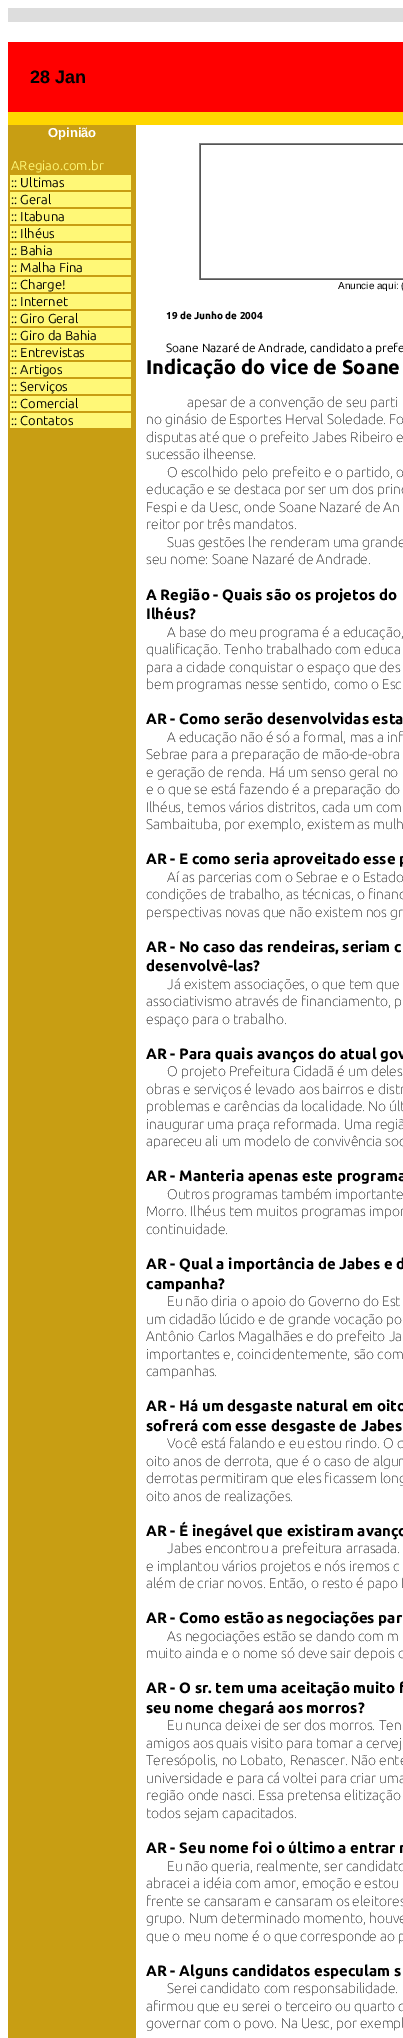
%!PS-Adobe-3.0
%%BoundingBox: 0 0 403 2038
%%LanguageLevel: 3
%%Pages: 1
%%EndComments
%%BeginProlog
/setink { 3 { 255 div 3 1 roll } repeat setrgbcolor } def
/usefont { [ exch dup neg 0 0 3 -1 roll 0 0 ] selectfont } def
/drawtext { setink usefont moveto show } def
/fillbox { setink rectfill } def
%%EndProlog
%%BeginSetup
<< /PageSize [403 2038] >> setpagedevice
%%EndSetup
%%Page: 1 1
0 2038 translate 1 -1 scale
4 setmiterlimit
0 0 403 2038 255 255 255 fillbox
8 8 395 14 221 221 221 fillbox
8 42 395 70 255 0 0 fillbox
(28 Jan) 30 83 /LiberationSans-Bold 18 0 0 0 drawtext
8 112 395 13 255 215 0 fillbox
8 125 128 1913 200 158 19 fillbox
(Opinião) 48 137 /LiberationSans-Bold 13 255 255 255 drawtext
(ARegiao.com.br) 11 170 /Ubuntu-Regular 13 255 248 119 drawtext
10 175 121 15 255 248 119 fillbox
(:: Ultimas) 11 187 /Ubuntu-Regular 13 0 0 0 drawtext
10 192 121 15 255 248 119 fillbox
(:: Geral) 11 204 /Ubuntu-Regular 13 0 0 0 drawtext
10 209 121 15 255 248 119 fillbox
(:: Itabuna) 11 221 /Ubuntu-Regular 13 0 0 0 drawtext
10 226 121 15 255 248 119 fillbox
(:: Ilhéus) 11 238 /Ubuntu-Regular 13 0 0 0 drawtext
10 243 121 15 255 248 119 fillbox
(:: Bahia) 11 255 /Ubuntu-Regular 13 0 0 0 drawtext
10 260 121 15 255 248 119 fillbox
(:: Malha Fina) 11 272 /Ubuntu-Regular 13 0 0 0 drawtext
10 277 121 15 255 248 119 fillbox
(:: Charge!) 11 289 /Ubuntu-Regular 13 0 0 0 drawtext
10 294 121 15 255 248 119 fillbox
(:: Internet) 11 306 /Ubuntu-Regular 13 0 0 0 drawtext
10 311 121 15 255 248 119 fillbox
(:: Giro Geral) 11 323 /Ubuntu-Regular 13 0 0 0 drawtext
10 328 121 15 255 248 119 fillbox
(:: Giro da Bahia) 11 340 /Ubuntu-Regular 13 0 0 0 drawtext
10 345 121 15 255 248 119 fillbox
(:: Entrevistas) 11 357 /Ubuntu-Regular 13 0 0 0 drawtext
10 362 121 15 255 248 119 fillbox
(:: Artigos) 11 374 /Ubuntu-Regular 13 0 0 0 drawtext
10 379 121 15 255 248 119 fillbox
(:: Serviços) 11 391 /Ubuntu-Regular 13 0 0 0 drawtext
10 396 121 15 255 248 119 fillbox
(:: Comercial) 11 408 /Ubuntu-Regular 13 0 0 0 drawtext
10 413 121 15 255 248 119 fillbox
(:: Contatos) 11 425 /Ubuntu-Regular 13 0 0 0 drawtext
199 143 204 1 128 128 128 fillbox
199 279 204 1 85 85 85 fillbox
199 143 1 137 128 128 128 fillbox
200 144 203 1 85 85 85 fillbox
200 278 203 1 128 128 128 fillbox
200 144 1 135 85 85 85 fillbox
(Anuncie aqui: \() 338 289 /LiberationSans-Regular 10 0 0 0 drawtext
(19 de Junho de 2004) 166 319 /Ubuntu-ExtraBold 10 0 0 0 drawtext
(Soane Nazaré de Andrade, candidato a prefe) 166 352 /Ubuntu-Regular 12 0 0 0 drawtext
(Indicação do vice de Soane) 146 374 /Ubuntu-ExtraBold 20 0 0 0 drawtext
(apesar de a convenção de seu parti) 187 407 /Ubuntu-Thin 14 0 0 0 drawtext
(no ginásio de Esportes Herval Soledade. Fo) 146 424 /Ubuntu-Thin 14 0 0 0 drawtext
(disputas até que o prefeito Jabes Ribeiro e) 146 442 /Ubuntu-Thin 14 0 0 0 drawtext
(sucessão ilheense.) 146 459 /Ubuntu-Thin 14 0 0 0 drawtext
(O escolhido pelo prefeito e o partido, o) 167 477 /Ubuntu-Thin 14 0 0 0 drawtext
(educação e se destaca por ser um dos princ) 146 494 /Ubuntu-Thin 14 0 0 0 drawtext
(Fespi e da Uesc, onde Soane Nazaré de An) 146 512 /Ubuntu-Thin 14 0 0 0 drawtext
(reitor por três mandatos.) 146 529 /Ubuntu-Thin 14 0 0 0 drawtext
(Suas gestões lhe renderam uma grande) 167 547 /Ubuntu-Thin 14 0 0 0 drawtext
(seu nome: Soane Nazaré de Andrade.) 146 564 /Ubuntu-Thin 14 0 0 0 drawtext
(A Região - Quais são os projetos do) 146 600 /Ubuntu-ExtraBold 15 0 0 0 drawtext
(Ilhéus?) 146 619 /Ubuntu-ExtraBold 15 0 0 0 drawtext
(A base do meu programa é a educação,) 167 637 /Ubuntu-Thin 14 0 0 0 drawtext
(qualificação. Tenho trabalhado com educa) 146 654 /Ubuntu-Thin 14 0 0 0 drawtext
(para a cidade conquistar o espaço que des) 146 672 /Ubuntu-Thin 14 0 0 0 drawtext
(bem programas nesse sentido, como o Esc) 146 689 /Ubuntu-Thin 14 0 0 0 drawtext
(AR - Como serão desenvolvidas esta) 146 724 /Ubuntu-ExtraBold 15 0 0 0 drawtext
(A educação não é só a formal, mas a inf) 167 742 /Ubuntu-Thin 14 0 0 0 drawtext
(Sebrae para a preparação de mão-de-obra) 146 759 /Ubuntu-Thin 14 0 0 0 drawtext
(e geração de renda. Há um senso geral no) 146 777 /Ubuntu-Thin 14 0 0 0 drawtext
(e o que se está fazendo é a preparação do) 146 794 /Ubuntu-Thin 14 0 0 0 drawtext
(Ilhéus, temos vários distritos, cada um com) 146 812 /Ubuntu-Thin 14 0 0 0 drawtext
(Sambaituba, por exemplo, existem as mulh) 146 829 /Ubuntu-Thin 14 0 0 0 drawtext
(AR - E como seria aproveitado esse p) 146 864 /Ubuntu-ExtraBold 15 0 0 0 drawtext
(Aí as parcerias com o Sebrae e o Estado) 167 882 /Ubuntu-Thin 14 0 0 0 drawtext
(condições de trabalho, as técnicas, o financ) 146 899 /Ubuntu-Thin 14 0 0 0 drawtext
(perspectivas novas que não existem nos gr) 146 917 /Ubuntu-Thin 14 0 0 0 drawtext
(AR - No caso das rendeiras, seriam c) 146 952 /Ubuntu-ExtraBold 15 0 0 0 drawtext
(desenvolvê-las?) 146 971 /Ubuntu-ExtraBold 15 0 0 0 drawtext
(Já existem associações, o que tem que) 167 989 /Ubuntu-Thin 14 0 0 0 drawtext
(associativismo através de financiamento, p) 146 1006 /Ubuntu-Thin 14 0 0 0 drawtext
(espaço para o trabalho.) 146 1024 /Ubuntu-Thin 14 0 0 0 drawtext
(AR - Para quais avanços do atual gov) 146 1059 /Ubuntu-ExtraBold 15 0 0 0 drawtext
(O projeto Prefeitura Cidadã é um deles) 167 1076 /Ubuntu-Thin 14 0 0 0 drawtext
(obras e serviços é levado aos bairros e distr) 146 1094 /Ubuntu-Thin 14 0 0 0 drawtext
(problemas e carências da localidade. No últ) 146 1111 /Ubuntu-Thin 14 0 0 0 drawtext
(inaugurar uma praça reformada. Uma regiã) 146 1129 /Ubuntu-Thin 14 0 0 0 drawtext
(apareceu ali um modelo de convivência soc) 146 1146 /Ubuntu-Thin 14 0 0 0 drawtext
(AR - Manteria apenas este programa) 146 1181 /Ubuntu-ExtraBold 15 0 0 0 drawtext
(Outros programas também importante) 167 1199 /Ubuntu-Thin 14 0 0 0 drawtext
(Morro. Ilhéus tem muitos programas impor) 146 1216 /Ubuntu-Thin 14 0 0 0 drawtext
(continuidade.) 146 1234 /Ubuntu-Thin 14 0 0 0 drawtext
(AR - Qual a importância de Jabes e d) 146 1269 /Ubuntu-ExtraBold 15 0 0 0 drawtext
(campanha?) 146 1289 /Ubuntu-ExtraBold 15 0 0 0 drawtext
(Eu não diria o apoio do Governo do Est) 167 1306 /Ubuntu-Thin 14 0 0 0 drawtext
(um cidadão lúcido e de grande vocação po) 146 1324 /Ubuntu-Thin 14 0 0 0 drawtext
(Antônio Carlos Magalhães e do prefeito Ja) 146 1341 /Ubuntu-Thin 14 0 0 0 drawtext
(importantes e, coincidentemente, são com) 146 1359 /Ubuntu-Thin 14 0 0 0 drawtext
(campanhas.) 146 1376 /Ubuntu-Thin 14 0 0 0 drawtext
(AR - Há um desgaste natural em oito) 146 1411 /Ubuntu-ExtraBold 15 0 0 0 drawtext
(sofrerá com esse desgaste de Jabes) 146 1431 /Ubuntu-ExtraBold 15 0 0 0 drawtext
(Você está falando e eu estou rindo. O q) 167 1448 /Ubuntu-Thin 14 0 0 0 drawtext
(oito anos de derrota, que é o caso de algun) 146 1466 /Ubuntu-Thin 14 0 0 0 drawtext
(derrotas permitiram que eles ficassem long) 146 1483 /Ubuntu-Thin 14 0 0 0 drawtext
(oito anos de realizações.) 146 1501 /Ubuntu-Thin 14 0 0 0 drawtext
(AR - É inegável que existiram avanço) 146 1536 /Ubuntu-ExtraBold 15 0 0 0 drawtext
(Jabes encontrou a prefeitura arrasada.) 167 1553 /Ubuntu-Thin 14 0 0 0 drawtext
(e implantou vários projetos e nós iremos c) 146 1571 /Ubuntu-Thin 14 0 0 0 drawtext
(além de criar novos. Então, o resto é papo f) 146 1588 /Ubuntu-Thin 14 0 0 0 drawtext
(AR - Como estão as negociações par) 146 1623 /Ubuntu-ExtraBold 15 0 0 0 drawtext
(As negociações estão se dando com m) 167 1641 /Ubuntu-Thin 14 0 0 0 drawtext
(muito ainda e o nome só deve sair depois d) 146 1658 /Ubuntu-Thin 14 0 0 0 drawtext
(AR - O sr. tem uma aceitação muito f) 146 1693 /Ubuntu-ExtraBold 15 0 0 0 drawtext
(seu nome chegará aos morros?) 146 1713 /Ubuntu-ExtraBold 15 0 0 0 drawtext
(Eu nunca deixei de ser dos morros. Ten) 167 1730 /Ubuntu-Thin 14 0 0 0 drawtext
(amigos aos quais visito para tomar a cerveji) 146 1748 /Ubuntu-Thin 14 0 0 0 drawtext
(Teresópolis, no Lobato, Renascer. Não ente) 146 1765 /Ubuntu-Thin 14 0 0 0 drawtext
(universidade e para cá voltei para criar uma) 146 1783 /Ubuntu-Thin 14 0 0 0 drawtext
(região onde nasci. Essa pretensa elitização) 146 1800 /Ubuntu-Thin 14 0 0 0 drawtext
(todos sejam capacitados.) 146 1818 /Ubuntu-Thin 14 0 0 0 drawtext
(AR - Seu nome foi o último a entrar n) 146 1853 /Ubuntu-ExtraBold 15 0 0 0 drawtext
(Eu não queria, realmente, ser candidato) 167 1871 /Ubuntu-Thin 14 0 0 0 drawtext
(abracei a idéia com amor, emoção e estou) 146 1888 /Ubuntu-Thin 14 0 0 0 drawtext
(frente se cansaram e cansaram os eleitores) 146 1906 /Ubuntu-Thin 14 0 0 0 drawtext
(grupo. Num determinado momento, houve) 146 1923 /Ubuntu-Thin 14 0 0 0 drawtext
(que o meu nome é o que corresponde ao p) 146 1941 /Ubuntu-Thin 14 0 0 0 drawtext
(AR - Alguns candidatos especulam s) 146 1976 /Ubuntu-ExtraBold 15 0 0 0 drawtext
(Serei candidato com responsabilidade.) 167 1993 /Ubuntu-Thin 14 0 0 0 drawtext
(afirmou que eu serei o terceiro ou quarto c) 146 2011 /Ubuntu-Thin 14 0 0 0 drawtext
(governar com o povo. Na Uesc, por exempl) 146 2028 /Ubuntu-Thin 14 0 0 0 drawtext
showpage
%%EOF
